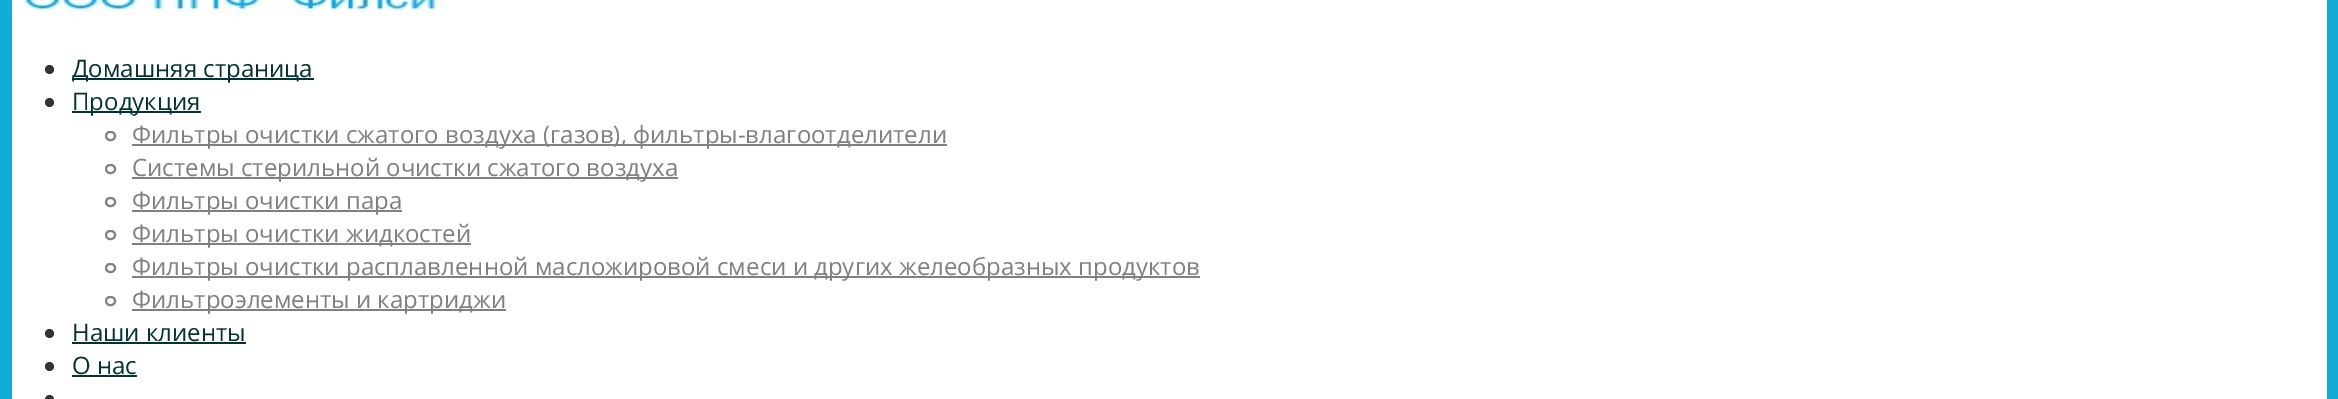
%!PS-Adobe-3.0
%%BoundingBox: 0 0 2338 399
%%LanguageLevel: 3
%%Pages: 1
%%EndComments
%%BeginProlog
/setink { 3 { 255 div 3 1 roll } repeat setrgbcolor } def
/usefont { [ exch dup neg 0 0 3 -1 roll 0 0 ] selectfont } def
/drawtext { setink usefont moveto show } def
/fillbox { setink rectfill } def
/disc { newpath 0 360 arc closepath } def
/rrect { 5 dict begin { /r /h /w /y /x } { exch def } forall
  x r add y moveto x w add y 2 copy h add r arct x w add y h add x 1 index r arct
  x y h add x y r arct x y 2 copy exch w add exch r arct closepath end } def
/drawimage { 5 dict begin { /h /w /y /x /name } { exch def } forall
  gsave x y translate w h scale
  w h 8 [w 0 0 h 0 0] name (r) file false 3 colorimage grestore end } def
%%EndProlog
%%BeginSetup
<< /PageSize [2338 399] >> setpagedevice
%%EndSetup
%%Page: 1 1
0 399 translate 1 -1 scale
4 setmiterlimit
0 0 2338 399 17 171 214 fillbox
12 0 2315 399 255 255 255 fillbox
(assets/img1.rgb) 15 0 433 16 drawimage
51 51 51 setink
49.5 69.5 4.5 disc fill
72 78 242 2 3 51 51 fillbox
(Домашняя страница) 72 77 /OpenSans-Regular 24 3 51 51 drawtext
51 51 51 setink
49.5 102.5 4.5 disc fill
72 111 129 2 3 51 51 fillbox
(Продукция) 72 110 /OpenSans-Regular 24 3 51 51 drawtext
128 128 128 setink
2 setlinewidth
106 132 9 8 4 rrect stroke
132 144 815 2 128 128 128 fillbox
(Фильтры очистки сжатого воздуха \(газов\), фильтры-влагоотделители) 132 143 /OpenSans-Regular 24 128 128 128 drawtext
106 165 9 8 4 rrect stroke
132 177 546 2 128 128 128 fillbox
(Системы стерильной очистки сжатого воздуха) 132 176 /OpenSans-Regular 24 128 128 128 drawtext
106 198 9 8 4 rrect stroke
132 210 270 2 128 128 128 fillbox
(Фильтры очистки пара) 132 209 /OpenSans-Regular 24 128 128 128 drawtext
106 231 9 8 4 rrect stroke
132 243 339 2 128 128 128 fillbox
(Фильтры очистки жидкостей) 132 242 /OpenSans-Regular 24 128 128 128 drawtext
106 264 9 8 4 rrect stroke
132 276 1068 2 128 128 128 fillbox
(Фильтры очистки расплавленной масложировой смеси и других желеобразных продуктов) 132 275 /OpenSans-Regular 24 128 128 128 drawtext
106 297 9 8 4 rrect stroke
132 309 374 2 128 128 128 fillbox
(Фильтроэлементы и картриджи) 132 308 /OpenSans-Regular 24 128 128 128 drawtext
51 51 51 setink
49.5 333.5 4.5 disc fill
(Наши клиенты) 72 341 /OpenSans-Regular 24 3 51 51 drawtext
72 342 174 2 3 51 51 fillbox
51 51 51 setink
49.5 366.5 4.5 disc fill
(О нас) 72 374 /OpenSans-Regular 24 3 51 51 drawtext
72 375 65 2 3 51 51 fillbox
51 51 51 setink
49.5 399.5 4.5 disc fill
showpage
%%EOF
